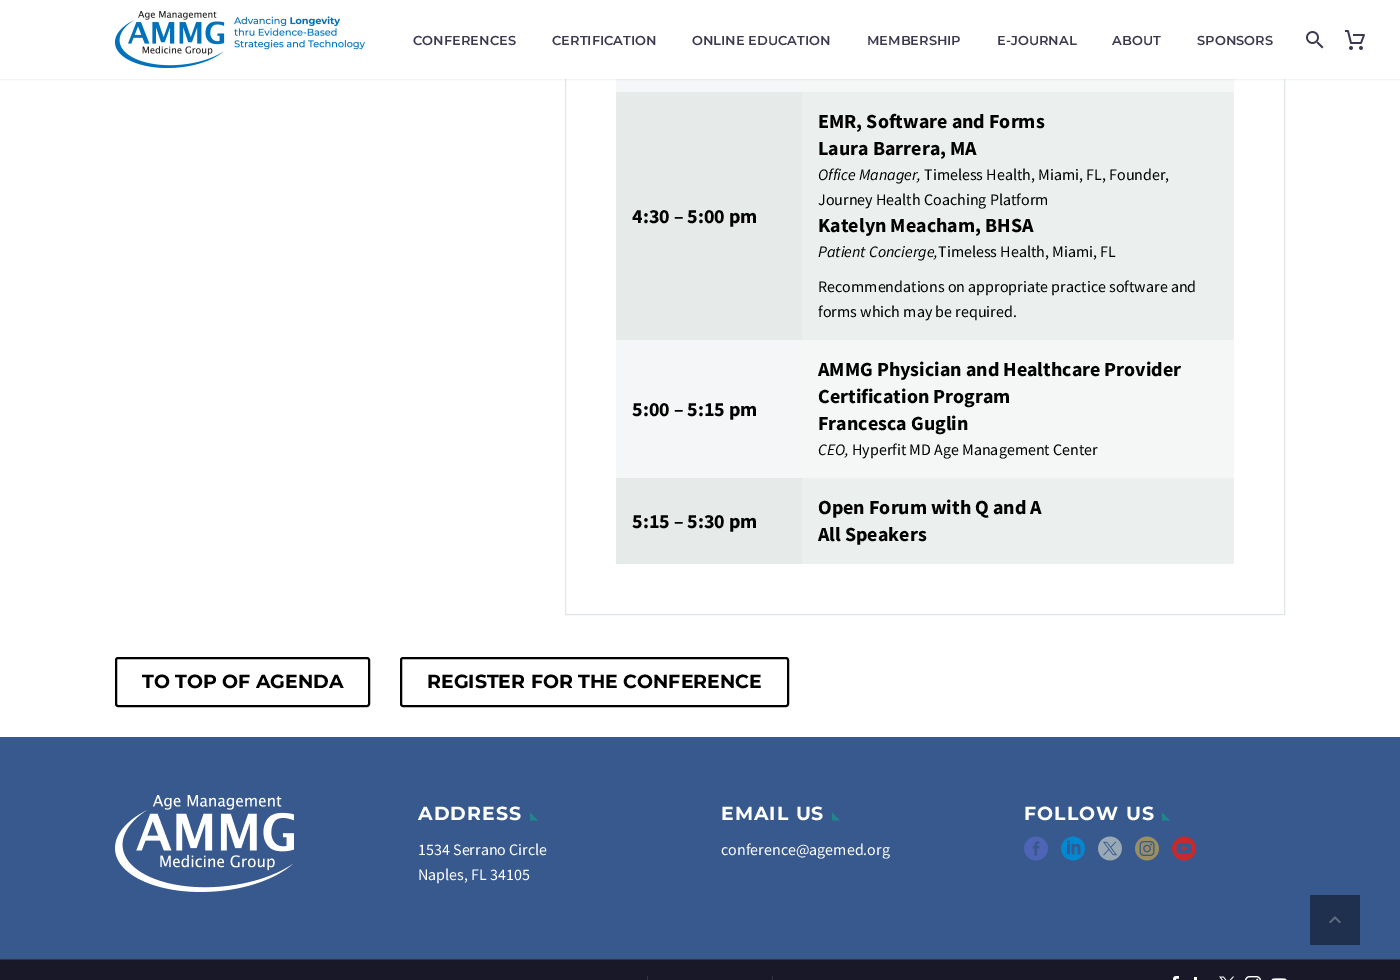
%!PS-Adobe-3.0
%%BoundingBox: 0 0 1400 980
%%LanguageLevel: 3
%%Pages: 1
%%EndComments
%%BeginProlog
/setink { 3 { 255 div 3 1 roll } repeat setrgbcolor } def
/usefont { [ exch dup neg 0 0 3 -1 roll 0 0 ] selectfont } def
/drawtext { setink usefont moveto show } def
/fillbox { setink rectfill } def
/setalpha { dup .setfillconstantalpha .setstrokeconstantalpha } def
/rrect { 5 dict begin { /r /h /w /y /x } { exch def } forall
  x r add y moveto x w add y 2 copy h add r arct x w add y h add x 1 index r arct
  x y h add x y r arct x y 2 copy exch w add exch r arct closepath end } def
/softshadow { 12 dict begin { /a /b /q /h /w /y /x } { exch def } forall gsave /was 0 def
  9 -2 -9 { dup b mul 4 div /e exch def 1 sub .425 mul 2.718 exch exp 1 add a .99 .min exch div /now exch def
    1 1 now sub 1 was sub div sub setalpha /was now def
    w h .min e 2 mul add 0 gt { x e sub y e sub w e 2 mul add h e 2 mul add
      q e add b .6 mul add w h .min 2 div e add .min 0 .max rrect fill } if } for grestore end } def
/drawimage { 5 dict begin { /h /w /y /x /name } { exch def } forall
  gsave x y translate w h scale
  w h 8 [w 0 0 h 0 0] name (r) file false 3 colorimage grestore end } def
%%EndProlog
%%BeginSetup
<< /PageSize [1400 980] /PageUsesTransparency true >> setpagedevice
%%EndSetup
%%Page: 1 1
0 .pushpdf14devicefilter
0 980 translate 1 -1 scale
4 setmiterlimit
0 0 1400 980 255 255 255 fillbox
223 229 232 setink
565.5 -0.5 719 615 rectstroke
616 79 186 13 244 246 247 fillbox
802 79 432 13 244 247 246 fillbox
56 69 84 setink
0 0 1400 79 0 1 0.2 softshadow
0 0 1400 79 255 255 255 fillbox
(assets/img1.rgb) 115 11 250 57 drawimage
(CONFERENCES) 413 45 /Montserrat-SemiBold 13 60 57 80 drawtext
(CERTIFICATION) 552 45 /Montserrat-SemiBold 13 60 57 80 drawtext
(ONLINE EDUCATION) 692 45 /Montserrat-SemiBold 13 60 57 80 drawtext
(MEMBERSHIP) 867 45 /Montserrat-SemiBold 13 60 57 80 drawtext
(E-JOURNAL) 997 45 /Montserrat-SemiBold 13 60 57 80 drawtext
(ABOUT) 1112 45 /Montserrat-SemiBold 13 60 57 80 drawtext
(SPONSORS) 1197 45 /Montserrat-SemiBold 13 60 57 80 drawtext
(assets/img2.rgb) 1306 31 18 18 drawimage
(assets/img3.rgb) 1345 30 20 20 drawimage
616 92 186 248 230 235 233 fillbox
(4:30 – 5:00 pm) 632 223 /SourceSansPro-Bold 20 0 0 0 drawtext
802 92 432 248 235 240 239 fillbox
(EMR, Software and Forms) 818 128 /SourceSansPro-Bold 20 0 0 0 drawtext
(Laura Barrera, MA) 818 155 /SourceSansPro-Bold 20 0 0 0 drawtext
(Office Manager,) 818 180 /SourceSansPro-Italic 16 0 0 0 drawtext
(Timeless Health, Miami, FL, Founder,) 924 180 /SourceSansPro-Regular 16 0 0 0 drawtext
(Journey Health Coaching Platform) 818 205 /SourceSansPro-Regular 16 0 0 0 drawtext
(Katelyn Meacham, BHSA) 818 232 /SourceSansPro-Bold 20 0 0 0 drawtext
(Patient Concierge,) 818 257 /SourceSansPro-Italic 16 0 0 0 drawtext
(Timeless Health, Miami, FL) 938 257 /SourceSansPro-Regular 16 0 0 0 drawtext
(Recommendations on appropriate practice software and) 818 292 /SourceSansPro-Regular 16 0 0 0 drawtext
(forms which may be required.) 818 317 /SourceSansPro-Regular 16 0 0 0 drawtext
616 340 186 138 244 246 247 fillbox
(5:00 – 5:15 pm) 632 416 /SourceSansPro-Bold 20 0 0 0 drawtext
802 340 432 138 244 247 246 fillbox
(AMMG Physician and Healthcare Provider) 818 376 /SourceSansPro-Bold 20 0 0 0 drawtext
(Certification Program) 818 403 /SourceSansPro-Bold 20 0 0 0 drawtext
(Francesca Guglin) 818 430 /SourceSansPro-Bold 20 0 0 0 drawtext
(CEO,) 818 455 /SourceSansPro-Italic 16 0 0 0 drawtext
(Hyperfit MD Age Management Center) 852 455 /SourceSansPro-Regular 16 0 0 0 drawtext
616 478 186 86 230 235 233 fillbox
(5:15 – 5:30 pm) 632 528 /SourceSansPro-Bold 20 0 0 0 drawtext
802 478 432 86 235 240 239 fillbox
(Open Forum with Q and A) 818 514 /SourceSansPro-Bold 20 0 0 0 drawtext
(All Speakers) 818 541 /SourceSansPro-Bold 20 0 0 0 drawtext
2 setlinewidth
116 658 253 48 2 rrect stroke
(TO TOP OF AGENDA) 142 688 /Montserrat-Bold 19 0 0 0 drawtext
401 658 387 48 2 rrect stroke
(REGISTER FOR THE CONFERENCE) 427 688 /Montserrat-Bold 19 0 0 0 drawtext
0 737 1400 222 56 89 142 fillbox
(assets/img4.rgb) 115 795 179 97 drawimage
254 255 255 setink
418 820 moveto 1 0 (ADDRESS) ashow
34 133 141 setink
530 812.5 moveto 530 820.5 lineto 538 820.5 lineto closepath fill
(1534 Serrano Circle) 418 855 /SourceSansPro-Regular 16 254 255 255 drawtext
(Naples, FL 34105) 418 880 /SourceSansPro-Regular 16 254 255 255 drawtext
/Montserrat-Bold 19 usefont
721 820 moveto 1 0 (EMAIL US) ashow
34 133 141 setink
832 812.5 moveto 832 820.5 lineto 840 820.5 lineto closepath fill
(conference@agemed.org) 721 855 /SourceSansPro-Regular 16 254 255 255 drawtext
/Montserrat-Bold 19 usefont
1024 820 moveto 1 0 (FOLLOW US) ashow
34 133 141 setink
1162 812.5 moveto 1162 820.5 lineto 1170 820.5 lineto closepath fill
(assets/img5.rgb) 1024 836 24 25 drawimage
(assets/img6.rgb) 1061 836 24 25 drawimage
(assets/img7.rgb) 1098 836 24 25 drawimage
(assets/img8.rgb) 1135 836 24 25 drawimage
(assets/img9.rgb) 1172 836 24 25 drawimage
1310 895 50 50 31 48 79 fillbox
(assets/img10.rgb) 1329 916 12 8 drawimage
0 960 1400 20 24 24 40 fillbox
0 959 1400 1 49 54 70 fillbox
647 976 1 4 51 49 70 fillbox
772 976 1 4 51 49 70 fillbox
(assets/img11.rgb) 1173 976 6 4 drawimage
1194 977 3 3 255 255 255 fillbox
(assets/img12.rgb) 1219 976 16 4 drawimage
(assets/img13.rgb) 1245 976 16 4 drawimage
(assets/img14.rgb) 1271 978 16 2 drawimage
.poppdf14devicefilter showpage
%%EOF
